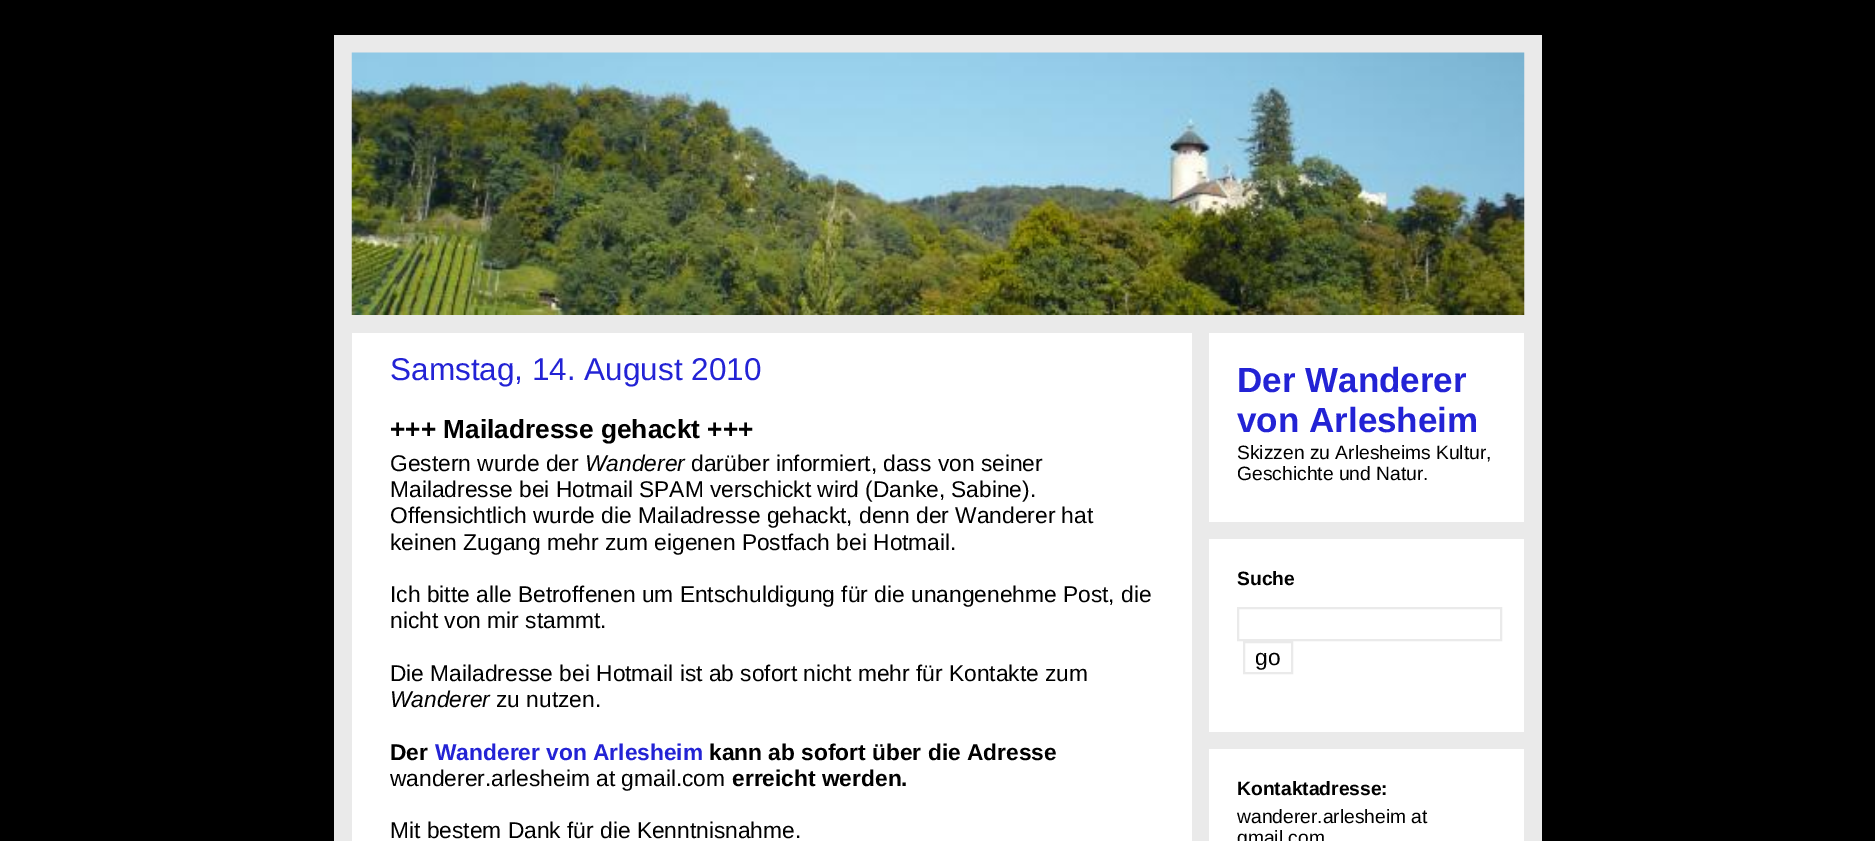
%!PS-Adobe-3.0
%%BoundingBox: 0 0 1875 841
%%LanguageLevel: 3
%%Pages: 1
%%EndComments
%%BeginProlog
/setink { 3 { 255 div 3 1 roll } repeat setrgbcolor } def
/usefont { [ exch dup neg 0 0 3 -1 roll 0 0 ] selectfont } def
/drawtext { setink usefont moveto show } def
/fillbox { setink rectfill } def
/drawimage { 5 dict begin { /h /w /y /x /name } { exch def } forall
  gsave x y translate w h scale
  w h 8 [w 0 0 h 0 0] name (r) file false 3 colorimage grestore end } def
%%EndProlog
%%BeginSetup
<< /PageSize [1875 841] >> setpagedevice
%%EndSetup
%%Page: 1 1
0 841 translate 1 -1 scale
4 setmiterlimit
0 0 1875 841 0 0 0 fillbox
334 35 1208 806 234 234 234 fillbox
(assets/img1.rgb) 351 52 1174 263 drawimage
352 333 1172 508 255 255 255 fillbox
1192 333 17 508 234 234 234 fillbox
(Samstag, 14. August 2010) 390 380 /LiberationSans-Regular 31.5 35 35 213 drawtext
(+++ Mailadresse gehackt +++) 390 438 /LiberationSans-Bold 26.25 0 0 0 drawtext
(Gestern wurde der) 390 471 /LiberationSans-Regular 22.75 0 0 0 drawtext
(Wanderer) 585 471 /LiberationSans-Italic 22.75 0 0 0 drawtext
(darüber informiert, dass von seiner) 691 471 /LiberationSans-Regular 22.75 0 0 0 drawtext
(Mailadresse bei Hotmail SPAM verschickt wird \(Danke, Sabine\).) 390 497 /LiberationSans-Regular 22.75 0 0 0 drawtext
(Offensichtlich wurde die Mailadresse gehackt, denn der Wanderer hat) 390 523 /LiberationSans-Regular 22.75 0 0 0 drawtext
(keinen Zugang mehr zum eigenen Postfach bei Hotmail.) 390 550 /LiberationSans-Regular 22.75 0 0 0 drawtext
(Ich bitte alle Betroffenen um Entschuldigung für die unangenehme Post, die) 390 602 /LiberationSans-Regular 22.75 0 0 0 drawtext
(nicht von mir stammt.) 390 628 /LiberationSans-Regular 22.75 0 0 0 drawtext
(Die Mailadresse bei Hotmail ist ab sofort nicht mehr für Kontakte zum) 390 681 /LiberationSans-Regular 22.75 0 0 0 drawtext
(Wanderer) 390 707 /LiberationSans-Italic 22.75 0 0 0 drawtext
(zu nutzen.) 496 707 /LiberationSans-Regular 22.75 0 0 0 drawtext
(Der) 390 760 /LiberationSans-Bold 22.75 0 0 0 drawtext
(Wanderer von Arlesheim) 435 760 /LiberationSans-Bold 22.75 35 35 213 drawtext
(kann ab sofort über die Adresse) 709 760 /LiberationSans-Bold 22.75 0 0 0 drawtext
(wanderer.arlesheim at gmail.com) 390 786 /LiberationSans-Regular 22.75 0 0 0 drawtext
(erreicht werden.) 732 786 /LiberationSans-Bold 22.75 0 0 0 drawtext
(Mit bestem Dank für die Kenntnisnahme.) 390 838 /LiberationSans-Regular 22.75 0 0 0 drawtext
1209 522 315 17 234 234 234 fillbox
(Der Wanderer) 1237 392 /LiberationSans-Bold 35 35 35 213 drawtext
(von Arlesheim) 1237 432 /LiberationSans-Bold 35 35 35 213 drawtext
(Skizzen zu Arlesheims Kultur,) 1237 459 /LiberationSans-Regular 19.25 0 0 0 drawtext
(Geschichte und Natur.) 1237 480 /LiberationSans-Regular 19.25 0 0 0 drawtext
1209 732 315 17 234 234 234 fillbox
(Suche) 1237 585 /LiberationSans-Bold 19.25 0 0 0 drawtext
234 234 234 setink
2 setlinewidth
1238 608 263 32 rectstroke
1244 642 48 31 rectstroke
(go) 1255 665 /LiberationSans-Regular 22.75 0 0 0 drawtext
(Kontaktadresse:) 1237 795 /LiberationSans-Bold 19.25 0 0 0 drawtext
(wanderer.arlesheim at) 1237 823 /LiberationSans-Regular 19.25 0 0 0 drawtext
(gmail.com) 1237 844 /LiberationSans-Regular 19.25 0 0 0 drawtext
showpage
%%EOF
